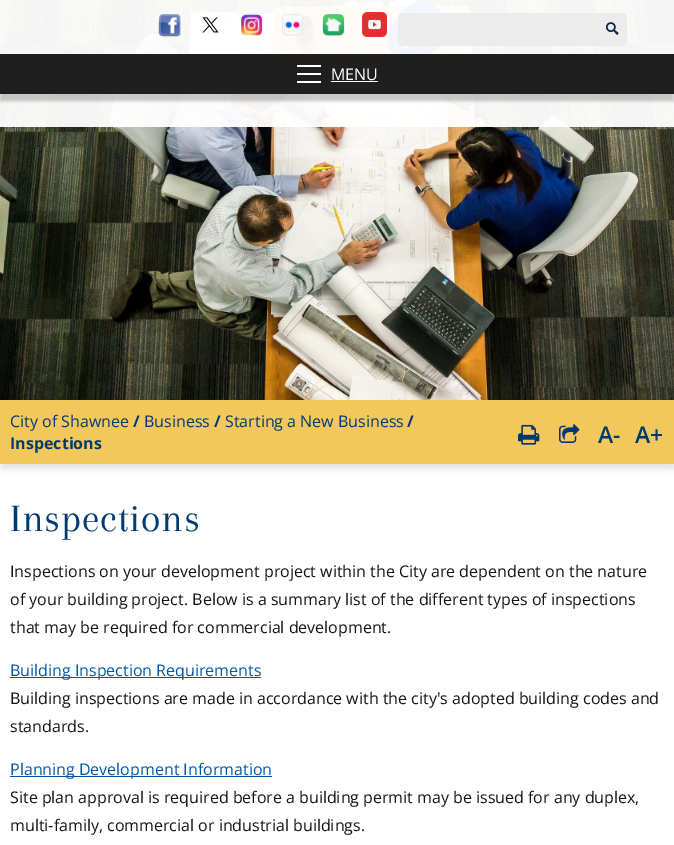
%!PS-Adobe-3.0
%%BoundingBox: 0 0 674 845
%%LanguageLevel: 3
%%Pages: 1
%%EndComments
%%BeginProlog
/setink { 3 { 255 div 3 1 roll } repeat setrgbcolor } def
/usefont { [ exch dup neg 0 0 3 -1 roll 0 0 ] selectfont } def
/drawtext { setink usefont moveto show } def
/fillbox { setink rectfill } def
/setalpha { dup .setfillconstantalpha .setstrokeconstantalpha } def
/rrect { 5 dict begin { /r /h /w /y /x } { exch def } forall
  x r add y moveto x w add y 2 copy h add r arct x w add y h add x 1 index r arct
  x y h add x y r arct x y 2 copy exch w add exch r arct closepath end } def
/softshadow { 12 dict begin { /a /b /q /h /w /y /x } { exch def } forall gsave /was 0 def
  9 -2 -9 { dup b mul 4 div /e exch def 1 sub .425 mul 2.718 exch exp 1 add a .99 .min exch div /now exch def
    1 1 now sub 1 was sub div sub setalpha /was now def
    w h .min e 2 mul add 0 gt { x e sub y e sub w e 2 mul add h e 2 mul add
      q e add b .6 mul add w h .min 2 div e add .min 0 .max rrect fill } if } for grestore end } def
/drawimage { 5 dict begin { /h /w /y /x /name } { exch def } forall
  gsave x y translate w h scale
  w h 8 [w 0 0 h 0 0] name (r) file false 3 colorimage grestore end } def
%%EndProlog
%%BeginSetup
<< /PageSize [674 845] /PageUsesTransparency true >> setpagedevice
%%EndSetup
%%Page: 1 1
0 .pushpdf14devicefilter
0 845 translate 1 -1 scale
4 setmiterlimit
0 0 674 845 255 255 255 fillbox
(assets/img8.rgb) 0 0 674 400 drawimage
0.95 setalpha
0 0 674 127 255 255 255 fillbox
1 setalpha
(assets/img1.rgb) 158 14 23 23 drawimage
(assets/img2.rgb) 202 17 17 16 drawimage
(assets/img3.rgb) 241 14 22 22 drawimage
(assets/img4.rgb) 282 14 21 22 drawimage
(assets/img5.rgb) 322 14 23 22 drawimage
(assets/img6.rgb) 362 12 25 25 drawimage
236 236 236 setink
398 13 229 33 5 rrect fill
(assets/img7.rgb) 606 22 13 13 drawimage
0 0 0 setink
0 61 674 40 0 1.5 0.21 softshadow
0 54 674 40 31 31 31 fillbox
297 73 24 2 255 255 255 fillbox
297 65 24 2 255 255 255 fillbox
297 81 24 2 255 255 255 fillbox
(MENU) 331 80 /OpenSans-Regular 16 255 255 255 drawtext
331 81 47 1 255 255 255 fillbox
0 0 0 setink
1 405 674 64 0 3 0.11 softshadow
0 400 674 64 242 199 92 fillbox
(City of Shawnee) 10 427 /OpenSans-Regular 16 0 58 112 drawtext
(/) 133 427 /OpenSans-Bold 16 0 58 112 drawtext
(Business) 144 427 /OpenSans-Regular 16 0 58 112 drawtext
(/) 214 427 /OpenSans-Bold 16 0 58 112 drawtext
(Starting a New Business) 225 427 /OpenSans-Regular 16 0 58 112 drawtext
(/) 407 427 /OpenSans-Bold 16 0 58 112 drawtext
(Inspections) 10 449 /OpenSans-Bold 16 0 58 112 drawtext
(assets/img9.rgb) 518 424 22 21 drawimage
(assets/img10.rgb) 559 424 21 19 drawimage
(A-) 598 443 /OpenSans-SemiBold 23 0 58 112 drawtext
(A+) 635 443 /OpenSans-SemiBold 23 0 58 112 drawtext
/Arapey-Regular 40 usefont
10 531 moveto 0.75 0 (Inspections) ashow
(Inspections on your development project within the City are dependent on the nature) 10 577 /OpenSans-Regular 16 19 19 19 drawtext
(of your building project. Below is a summary list of the different types of inspections) 10 605 /OpenSans-Regular 16 19 19 19 drawtext
(that may be required for commercial development.) 10 633 /OpenSans-Regular 16 19 19 19 drawtext
10 677 251 1 0 87 168 fillbox
(Building Inspection Requirements) 10 676 /OpenSans-Regular 16 0 87 168 drawtext
(Building inspections are made in accordance with the city's adopted building codes and) 10 704 /OpenSans-Regular 16 19 19 19 drawtext
(standards.) 10 732 /OpenSans-Regular 16 19 19 19 drawtext
10 776 262 1 0 87 168 fillbox
(Planning Development Information) 10 775 /OpenSans-Regular 16 0 87 168 drawtext
(Site plan approval is required before a building permit may be issued for any duplex,) 10 803 /OpenSans-Regular 16 19 19 19 drawtext
(multi-family, commercial or industrial buildings.) 10 831 /OpenSans-Regular 16 19 19 19 drawtext
.poppdf14devicefilter showpage
%%EOF
